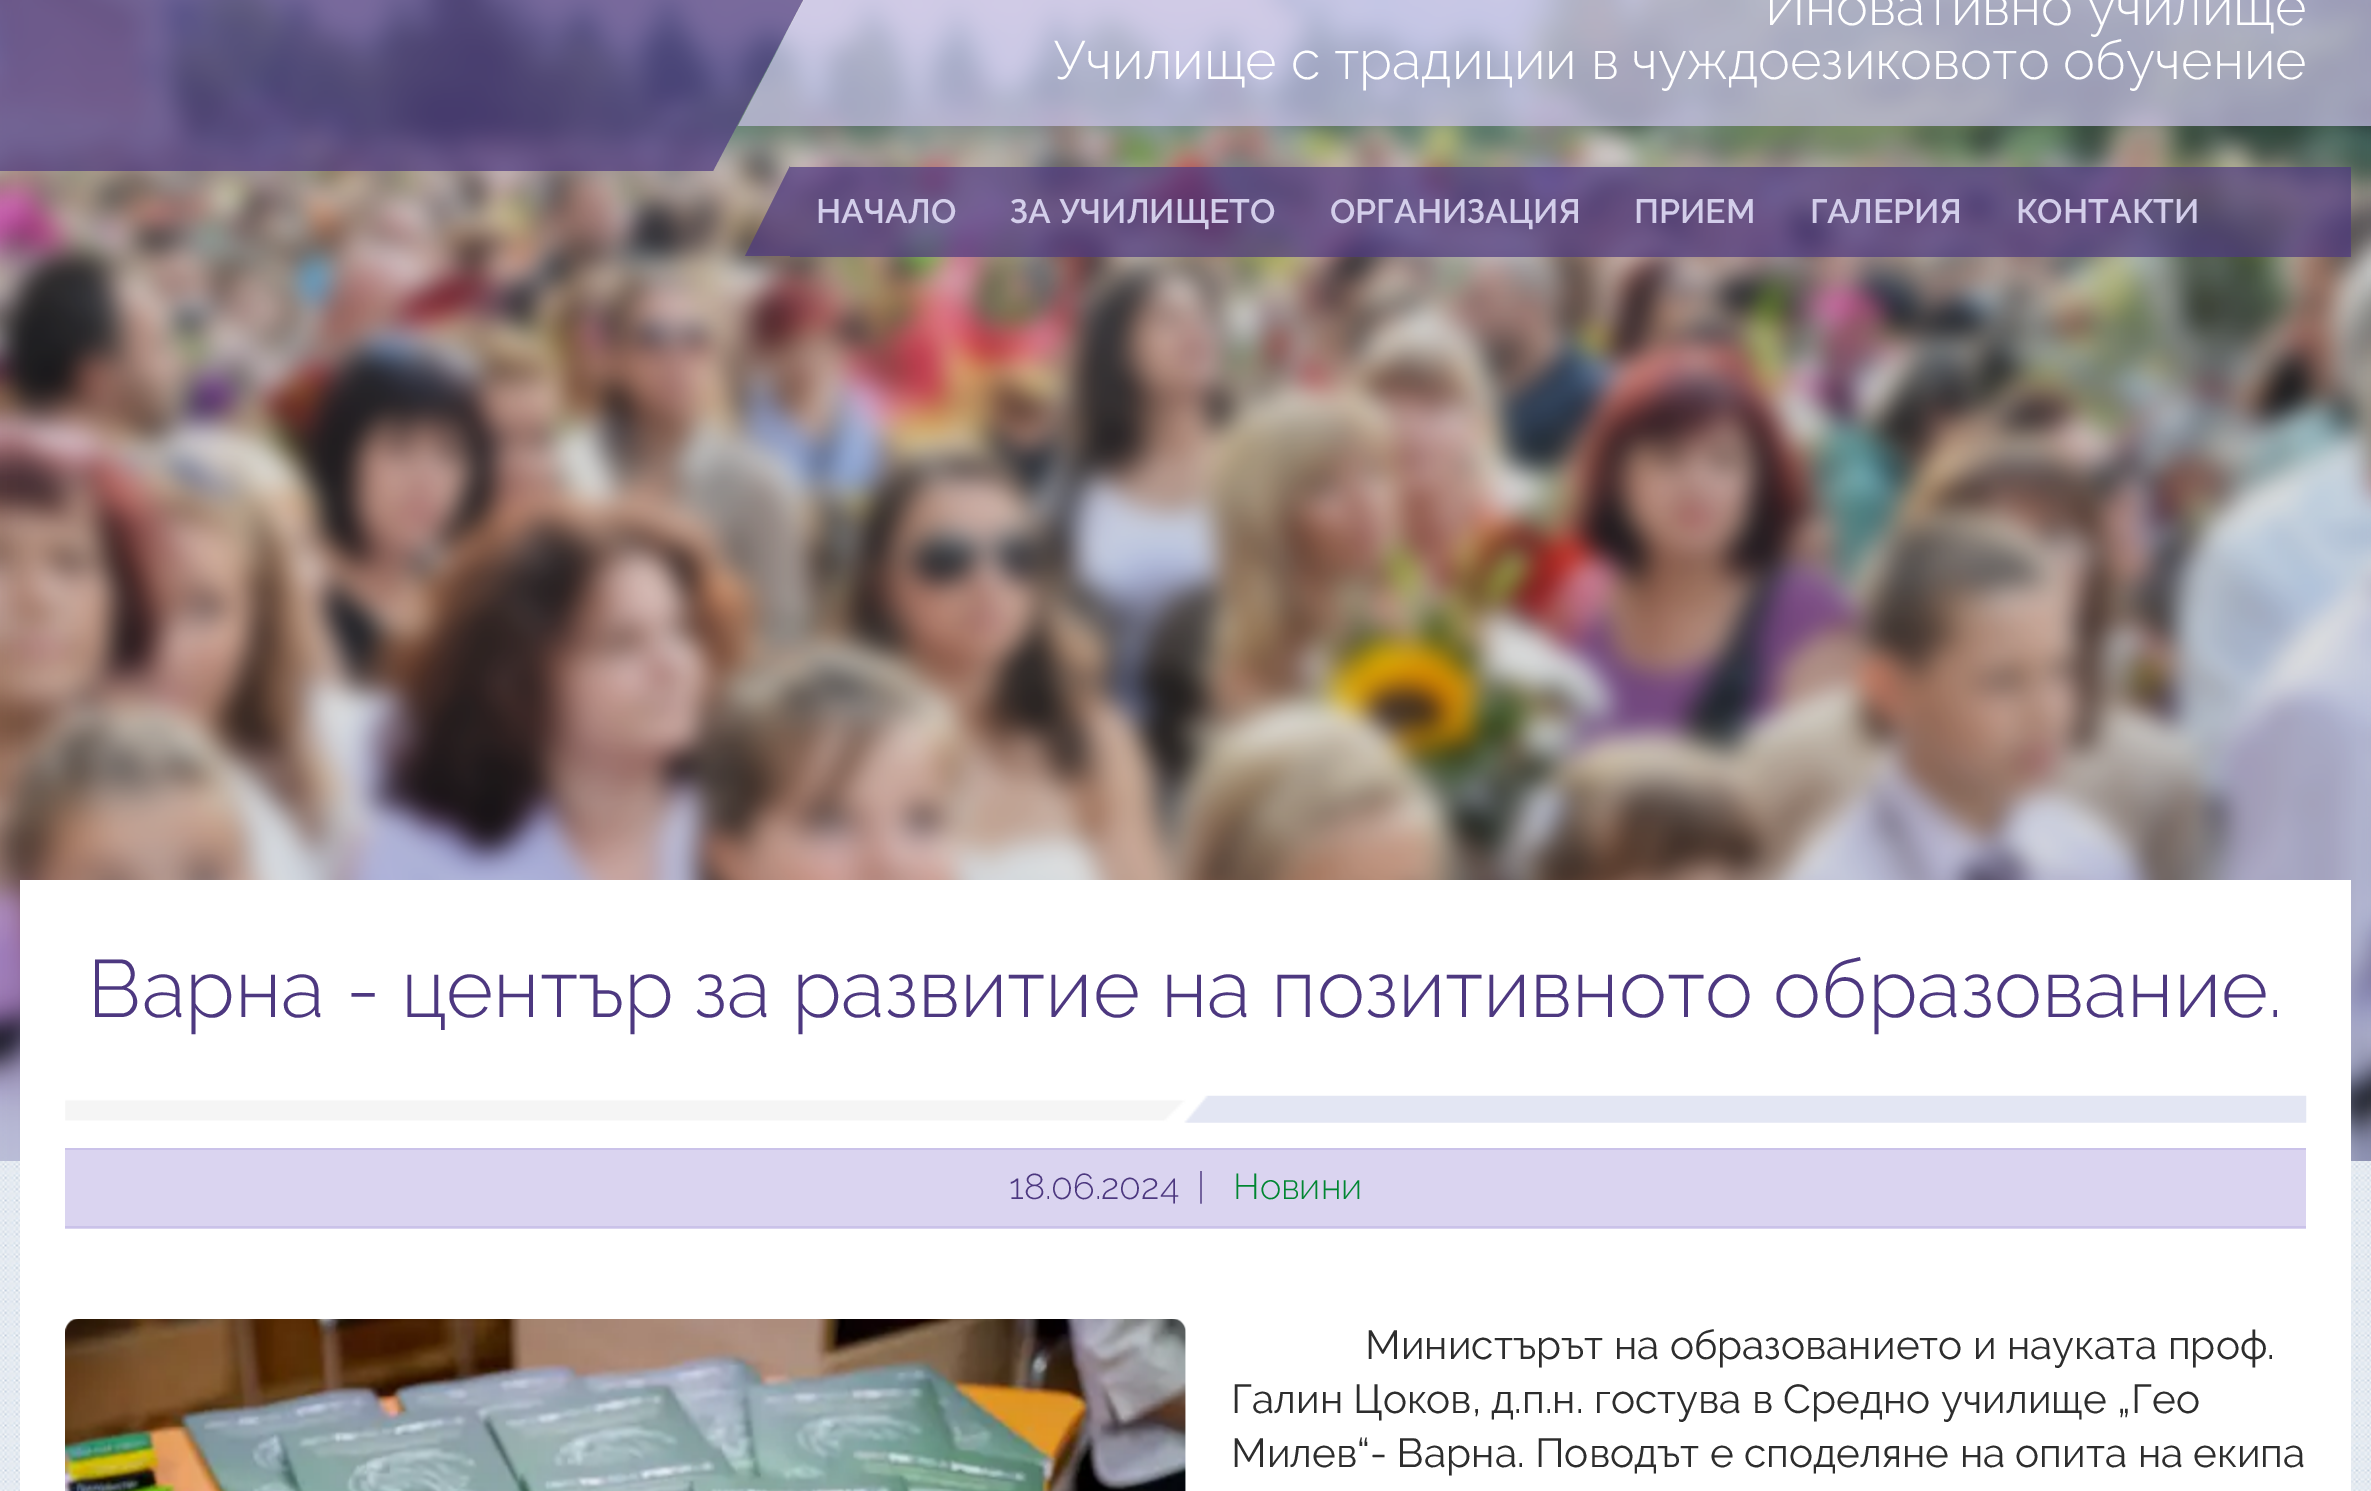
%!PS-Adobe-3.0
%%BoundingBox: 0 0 2371 1491
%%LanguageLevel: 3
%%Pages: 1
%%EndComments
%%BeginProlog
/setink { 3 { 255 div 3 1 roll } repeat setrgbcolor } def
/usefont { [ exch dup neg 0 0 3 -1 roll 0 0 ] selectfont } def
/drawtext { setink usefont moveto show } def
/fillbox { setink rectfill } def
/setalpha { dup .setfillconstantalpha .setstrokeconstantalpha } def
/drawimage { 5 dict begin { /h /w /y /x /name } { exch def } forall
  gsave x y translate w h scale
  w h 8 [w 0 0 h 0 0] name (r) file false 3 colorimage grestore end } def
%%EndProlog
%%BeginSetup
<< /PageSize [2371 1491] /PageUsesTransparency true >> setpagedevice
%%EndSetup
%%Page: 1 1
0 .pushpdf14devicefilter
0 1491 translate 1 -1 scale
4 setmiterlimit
0 0 2371 1491 255 255 255 fillbox
(assets/img1.rgb) 0 0 2371 1491 drawimage
(assets/img2.rgb) 0 0 2371 1161 drawimage
0.7 setalpha
0 0 713 171 77 56 128 fillbox
713 171 moveto 713 -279 lineto 950 -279 lineto closepath fill
950 0 1421 126 202 194 233 fillbox
950 -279 moveto 950 126 lineto 738 126 lineto closepath fill
1 setalpha
(Иновативно училище) 1765 25 /Raleway-Light 54 255 255 255 drawtext
(Училище с традиции в чуждоезиковото обучение) 1053 79 /Raleway-Light 54 255 255 255 drawtext
0.7 setalpha
790 167 1561 90 77 56 128 fillbox
790 166 moveto 790 256 lineto 745 256 lineto closepath fill
1 setalpha
(НАЧАЛО) 816 223 /Raleway-SemiBold 33.75 211 206 234 drawtext
(ЗА УЧИЛИЩЕТО) 1010 223 /Raleway-SemiBold 33.75 211 206 234 drawtext
(ОРГАНИЗАЦИЯ) 1330 223 /Raleway-SemiBold 33.75 211 206 234 drawtext
(ПРИЕМ) 1634 223 /Raleway-SemiBold 33.75 211 206 234 drawtext
(ГАЛЕРИЯ) 1810 223 /Raleway-SemiBold 33.75 211 206 234 drawtext
(КОНТАКТИ) 2016 223 /Raleway-SemiBold 33.75 211 206 234 drawtext
20 880 2331 611 255 255 255 fillbox
(assets/img3.rgb) 65 1095 2242 28 drawimage
(Варна - център за развитие на позитивното образование.) 88 1017 /Raleway-Light 81 77 56 128 drawtext
65 1150 2241 79 218 212 240 fillbox
65 1148 2241 2 202 194 233 fillbox
65 1226 2241 2 202 194 233 fillbox
(18.06.2024) 1009 1199 /Raleway-Light 36 77 56 128 drawtext
(|) 1197 1199 /Raleway-Light 36 77 56 128 drawtext
(Новини) 1233 1199 /Raleway-Light 36 0 134 49 drawtext
(assets/img4.rgb) 65 1319 1121 172 drawimage
(Министърът на образованието и науката проф.) 1365 1359 /Raleway-Regular 40.5 45 45 45 drawtext
(Галин Цоков, д.п.н. гостува в Средно училище „Гео) 1231 1413 /Raleway-Regular 40.5 45 45 45 drawtext
(Милев“- Варна. Поводът е споделяне на опита на екипа) 1231 1467 /Raleway-Regular 40.5 45 45 45 drawtext
.poppdf14devicefilter showpage
%%EOF
